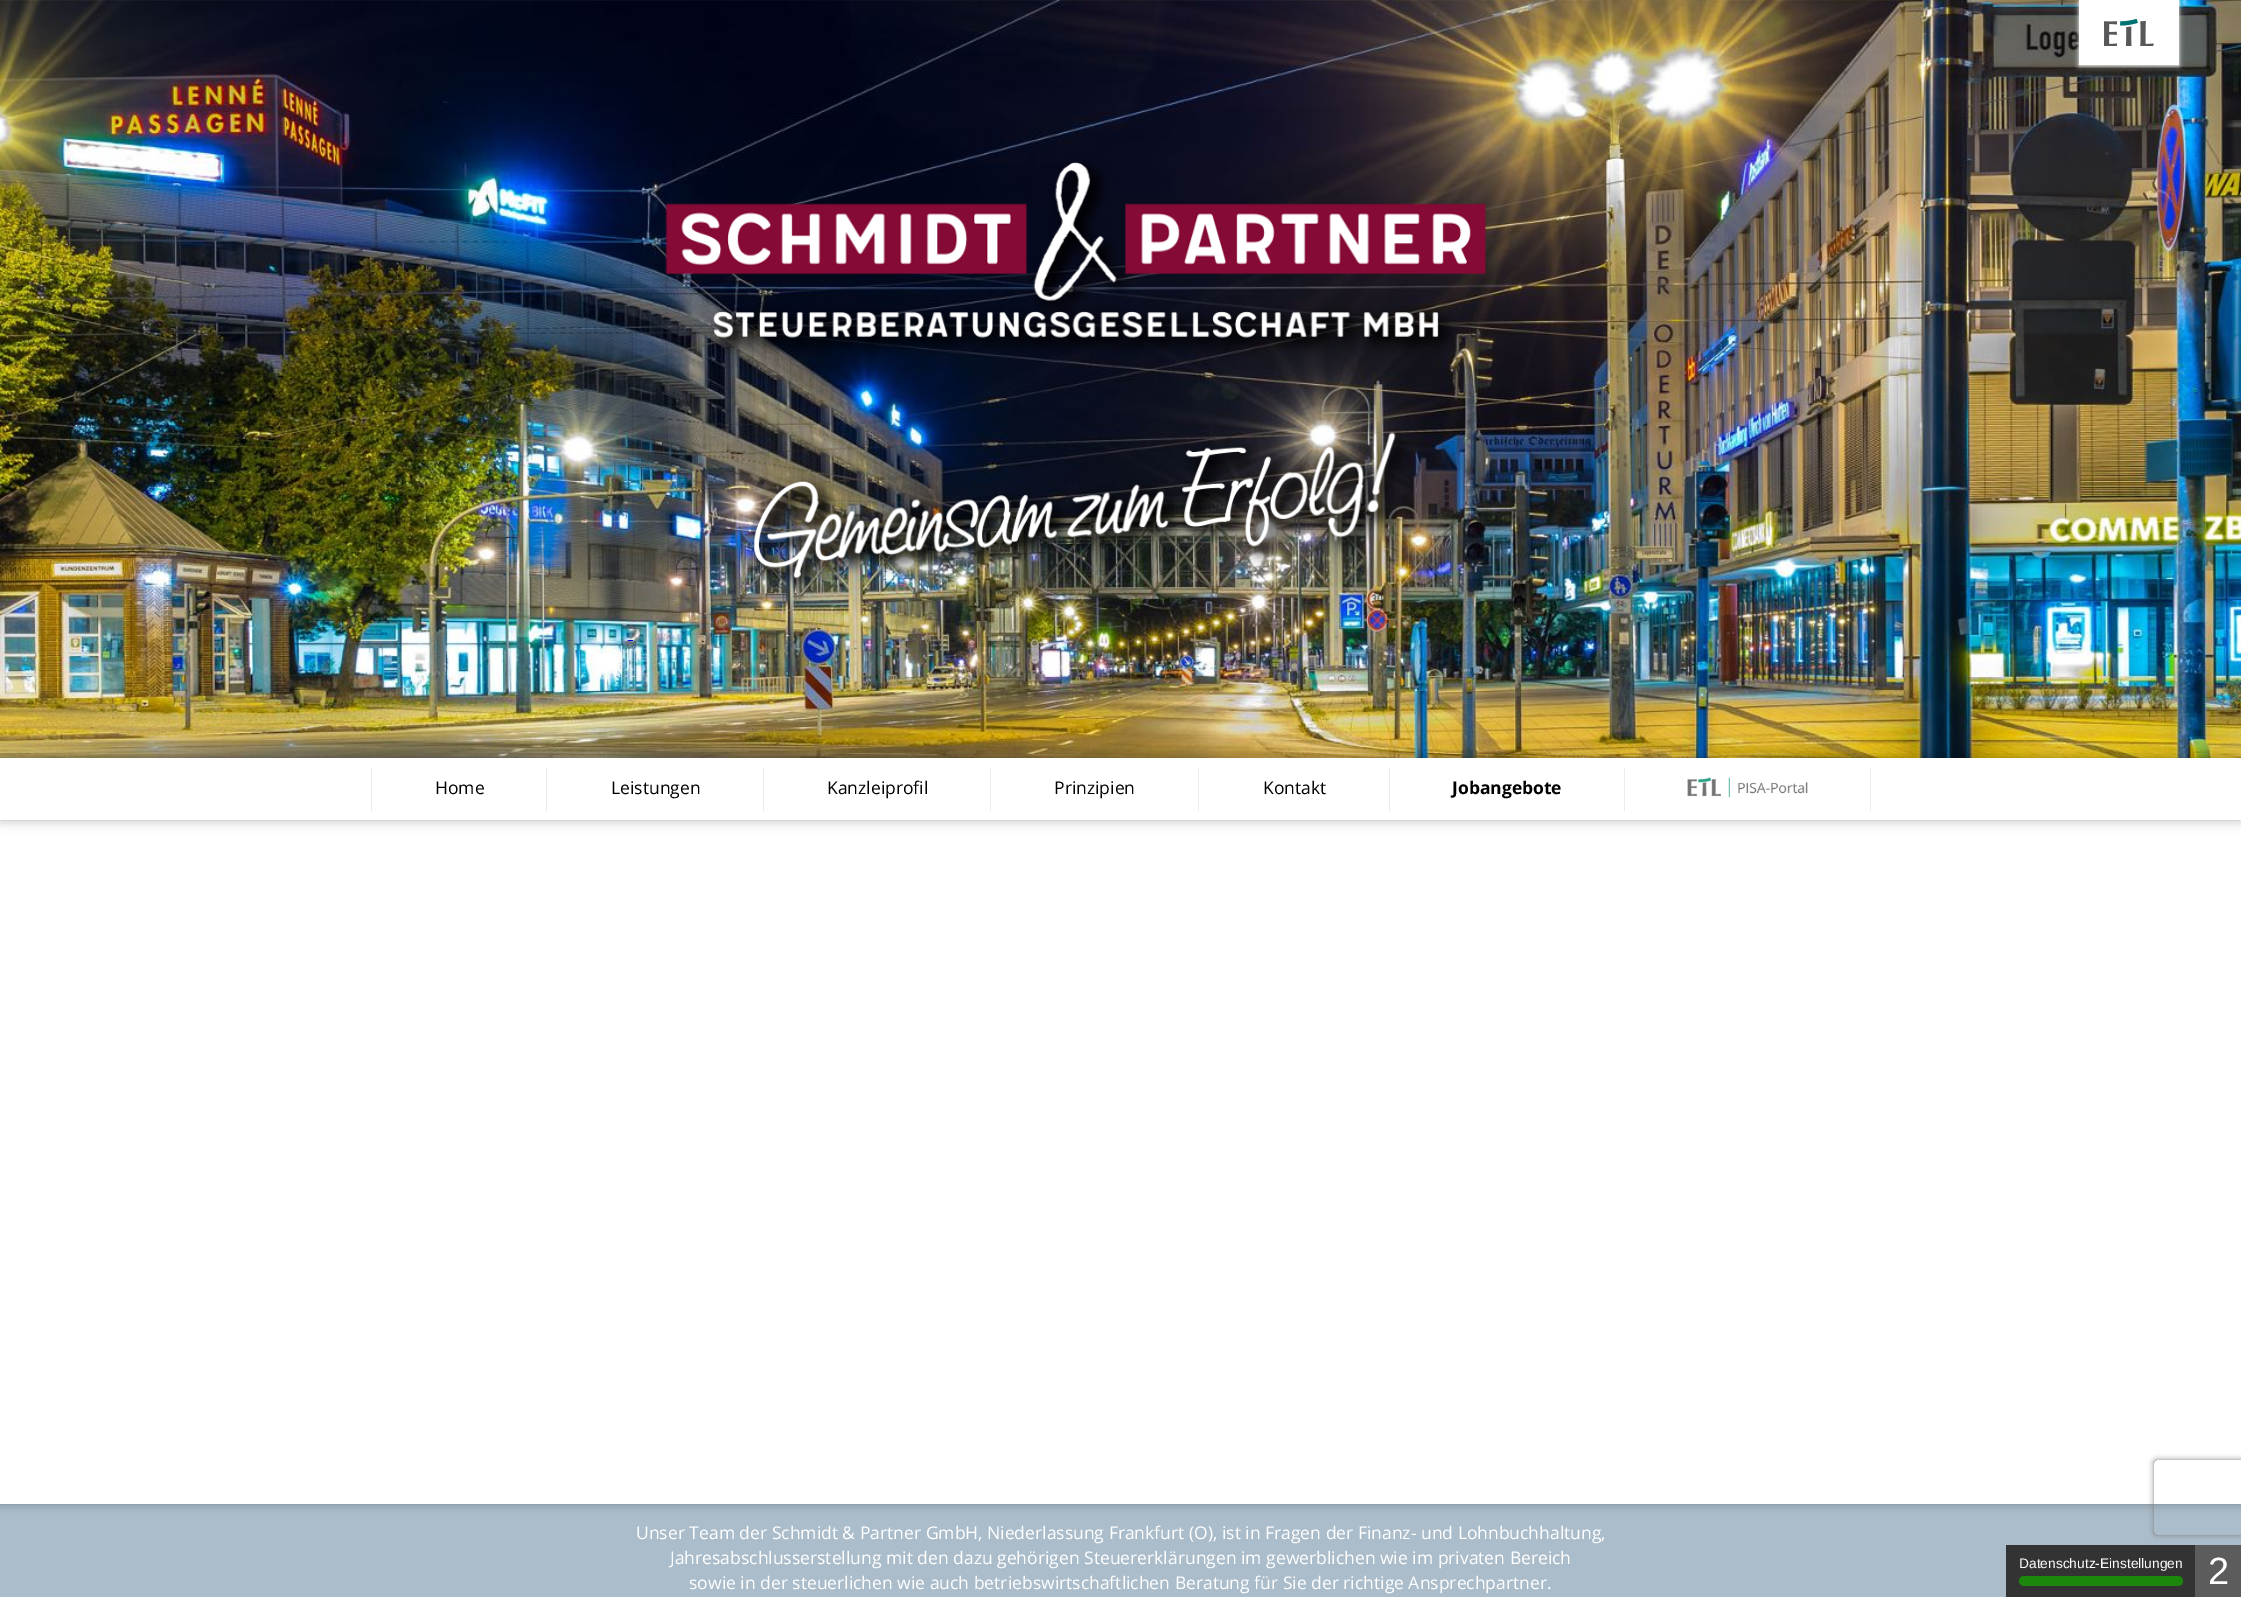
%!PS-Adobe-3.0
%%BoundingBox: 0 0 2241 1597
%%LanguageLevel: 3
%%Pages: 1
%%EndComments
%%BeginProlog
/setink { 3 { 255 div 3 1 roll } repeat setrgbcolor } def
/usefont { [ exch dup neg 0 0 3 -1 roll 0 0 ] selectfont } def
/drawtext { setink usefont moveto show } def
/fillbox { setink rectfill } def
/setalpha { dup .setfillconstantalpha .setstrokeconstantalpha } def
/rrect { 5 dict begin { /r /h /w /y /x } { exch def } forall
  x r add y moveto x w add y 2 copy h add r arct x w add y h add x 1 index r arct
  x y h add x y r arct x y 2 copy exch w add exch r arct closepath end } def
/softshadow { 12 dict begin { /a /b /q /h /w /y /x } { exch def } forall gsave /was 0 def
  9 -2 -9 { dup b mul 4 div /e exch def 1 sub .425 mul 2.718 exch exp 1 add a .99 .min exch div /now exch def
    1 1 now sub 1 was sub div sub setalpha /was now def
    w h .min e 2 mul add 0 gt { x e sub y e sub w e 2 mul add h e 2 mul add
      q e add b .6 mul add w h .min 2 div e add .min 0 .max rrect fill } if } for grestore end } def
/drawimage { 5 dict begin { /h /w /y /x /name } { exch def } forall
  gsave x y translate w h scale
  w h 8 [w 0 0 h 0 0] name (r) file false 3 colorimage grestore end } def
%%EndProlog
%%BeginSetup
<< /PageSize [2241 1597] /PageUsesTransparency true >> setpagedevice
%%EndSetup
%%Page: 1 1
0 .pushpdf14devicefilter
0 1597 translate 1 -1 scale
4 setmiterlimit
0 0 2241 1597 171 189 203 fillbox
0 0 0 setink
0 0 2241 1504 0 6 0.3 softshadow
0 758 2241 746 255 255 255 fillbox
(assets/img1.rgb) 0 0 2241 758 drawimage
2079 1 100 65 0 2.5 1 softshadow
2079 0 100 65 255 255 255 fillbox
(assets/img2.rgb) 2104 19 50 27 drawimage
(assets/img3.rgb) 665 161 821 435 drawimage
628 640 5 1 0 0 238 fillbox
gsave
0 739 moveto 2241 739 lineto 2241 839 lineto 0 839 lineto closepath 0 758 moveto 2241 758 lineto 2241 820 lineto 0 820 lineto closepath eoclip newpath
0 0 0 setink
0 758 2241 62 0 6 0.3 softshadow
grestore
371 768 1 43 235 235 235 fillbox
(Home) 435 794 /OpenSans-Regular 17.5 0 0 0 drawtext
546 768 1 43 235 235 235 fillbox
(Leistungen) 611 794 /OpenSans-Regular 17.5 0 0 0 drawtext
763 768 1 43 235 235 235 fillbox
(Kanzleiprofil) 827 794 /OpenSans-Regular 17.5 0 0 0 drawtext
990 768 1 43 235 235 235 fillbox
(Prinzipien) 1054 794 /OpenSans-Regular 17.5 0 0 0 drawtext
1198 768 1 43 235 235 235 fillbox
(Kontakt) 1263 794 /OpenSans-Regular 17.5 0 0 0 drawtext
1389 768 1 43 235 235 235 fillbox
(Jobangebote) 1452 794 /OpenSans-Bold 17.5 0 0 0 drawtext
1624 768 1 43 235 235 235 fillbox
(assets/img4.rgb) 1687 777 121 21 drawimage
1870 768 1 43 235 235 235 fillbox
(Unser Team der Schmidt & Partner GmbH, Niederlassung Frankfurt \(O\), ist in Fragen der Finanz- und Lohnbuchhaltung,) 636 1539 /OpenSans-Regular 17.5 255 255 255 drawtext
(Jahresabschlusserstellung mit den dazu gehörigen Steuererklärungen im gewerblichen wie im privaten Bereich) 670 1564 /OpenSans-Regular 17.5 255 255 255 drawtext
(sowie in der steuerlichen wie auch betriebswirtschaftlichen Beratung für Sie der richtige Ansprechpartner.) 689 1589 /OpenSans-Regular 17.5 255 255 255 drawtext
gsave
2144 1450 moveto 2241 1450 lineto 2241 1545 lineto 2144 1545 lineto closepath 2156.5 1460 moveto 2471.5 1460 lineto 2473 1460 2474 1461 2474 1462.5 curveto 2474 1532.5 lineto 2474 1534 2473 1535 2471.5 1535 curveto 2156.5 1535 lineto 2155 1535 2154 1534 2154 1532.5 curveto 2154 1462.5 lineto 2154 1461 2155 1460 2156.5 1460 curveto closepath eoclip newpath
128 128 128 setink
2154 1460 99 75 2.5 3 1 softshadow
grestore
2006 1545 189 52 51 51 51 fillbox
(Datenschutz-Einstellungen) 2019 1568 /LiberationSans-Regular 13.75 255 255 255 drawtext
27 135 11 setink
2019 1576 164 10 5 rrect fill
2195 1545 46 52 92 92 92 fillbox
(2) 2208 1584 /LiberationSans-Regular 38 255 255 255 drawtext
.poppdf14devicefilter showpage
%%EOF
